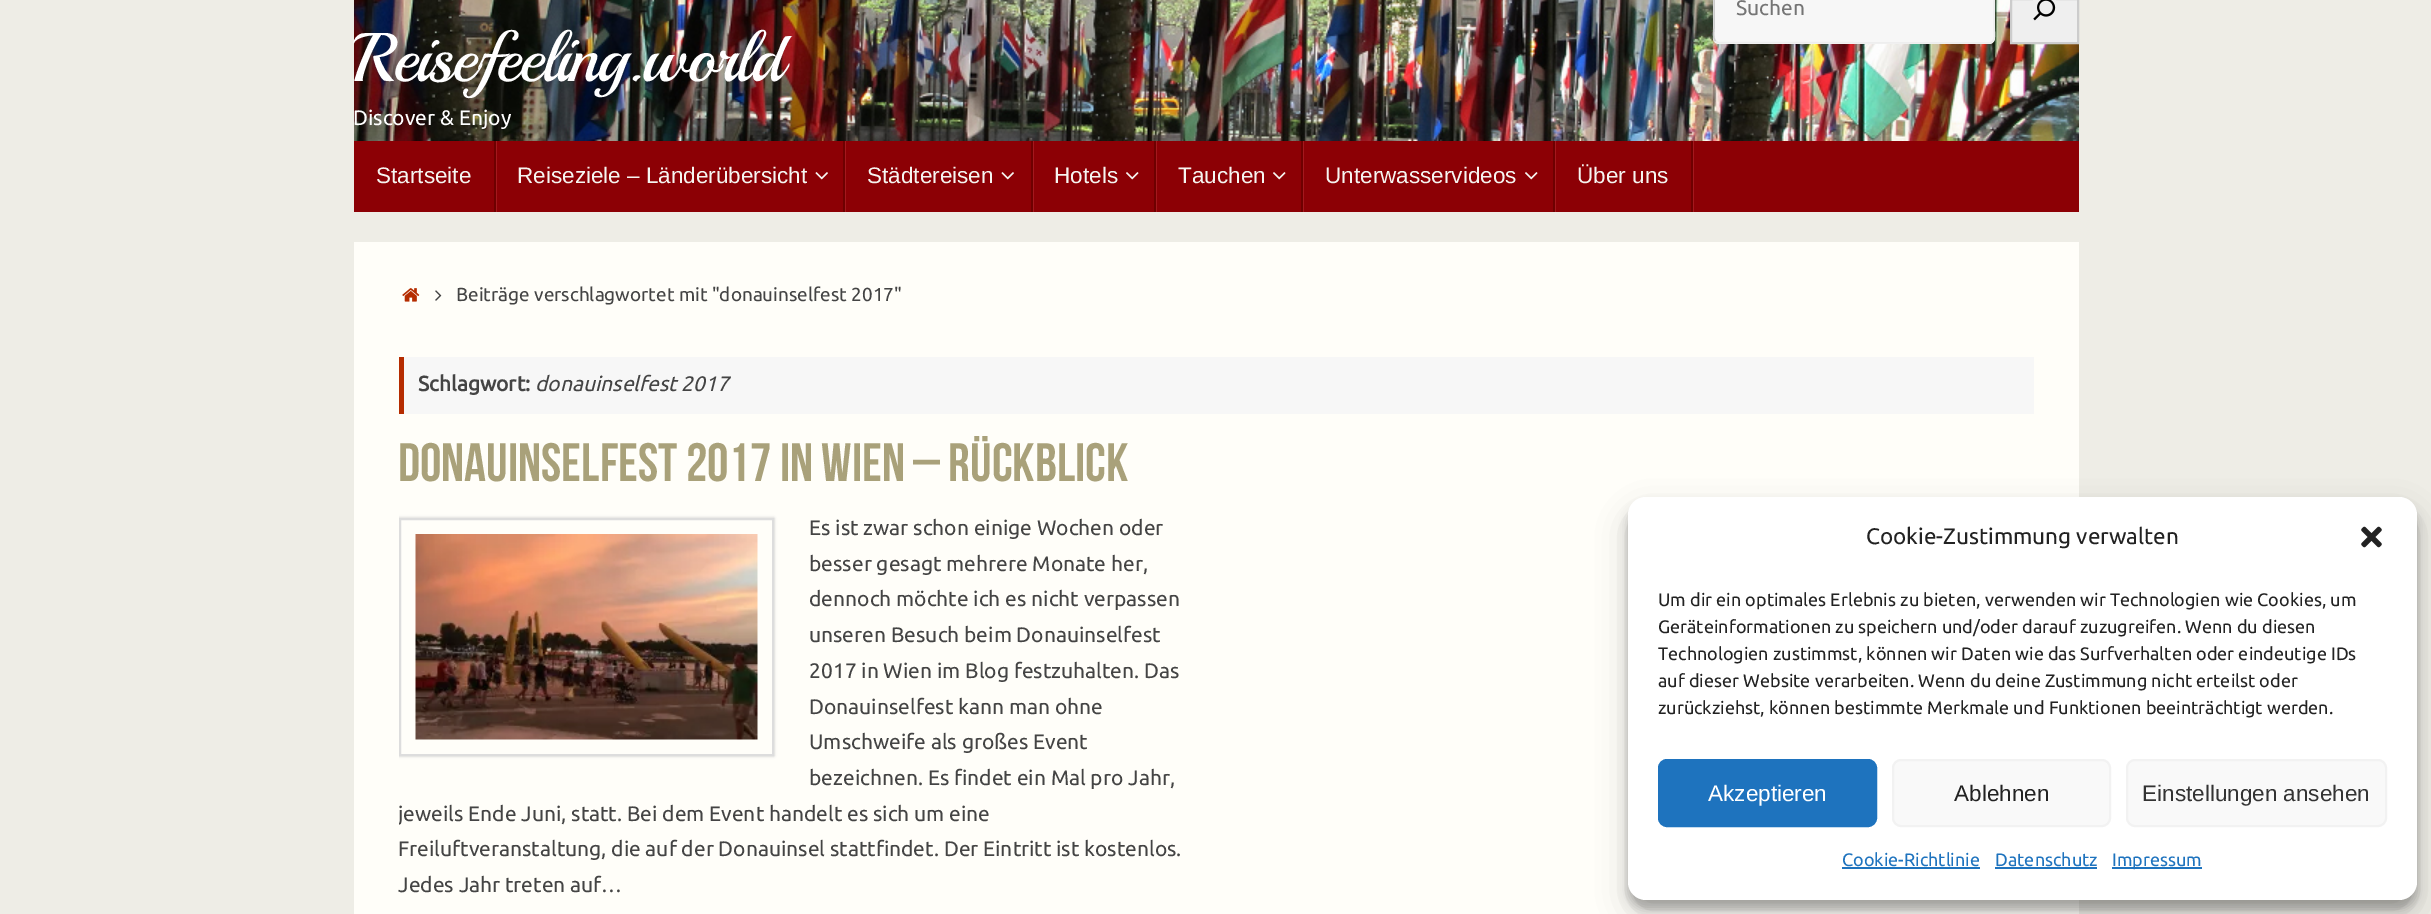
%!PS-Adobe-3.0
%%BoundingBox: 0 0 2431 914
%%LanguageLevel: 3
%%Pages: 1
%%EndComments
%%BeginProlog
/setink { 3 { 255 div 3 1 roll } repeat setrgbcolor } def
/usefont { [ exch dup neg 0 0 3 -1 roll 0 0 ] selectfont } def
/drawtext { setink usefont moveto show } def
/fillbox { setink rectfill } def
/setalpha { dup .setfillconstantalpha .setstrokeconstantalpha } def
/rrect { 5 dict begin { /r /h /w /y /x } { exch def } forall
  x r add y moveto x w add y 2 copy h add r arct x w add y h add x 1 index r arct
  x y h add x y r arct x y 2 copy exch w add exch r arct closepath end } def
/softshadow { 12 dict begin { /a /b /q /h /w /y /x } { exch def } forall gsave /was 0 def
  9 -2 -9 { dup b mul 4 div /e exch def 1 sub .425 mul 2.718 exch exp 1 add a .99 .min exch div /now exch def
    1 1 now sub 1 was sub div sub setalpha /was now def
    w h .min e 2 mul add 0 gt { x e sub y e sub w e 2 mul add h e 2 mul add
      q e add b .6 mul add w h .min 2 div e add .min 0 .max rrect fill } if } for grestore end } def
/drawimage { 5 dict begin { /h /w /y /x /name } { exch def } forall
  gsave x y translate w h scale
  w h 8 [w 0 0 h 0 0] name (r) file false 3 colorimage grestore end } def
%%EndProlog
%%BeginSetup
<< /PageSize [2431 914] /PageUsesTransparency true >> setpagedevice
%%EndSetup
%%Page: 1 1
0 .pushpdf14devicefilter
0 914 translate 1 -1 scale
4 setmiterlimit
0 0 2431 914 238 237 230 fillbox
(assets/img1.rgb) 354 0 1725 141 drawimage
247 247 247 setink
1713 -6 282 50 6 rrect fill
238 238 238 setink
1.5 setlinewidth
1992.5 -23 moveto 1995.5 -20 1994 -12.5 1994 -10 curveto 1994 28 lineto 1994 32 1996.5 42.5 1989 43 curveto 1718 42.5 lineto 1715.5 41 lineto stroke
204 204 204 setink
1715.5 41 moveto 1712.5 38 1714 30.5 1714 28 curveto 1714 -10 lineto 1714 -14 1711.5 -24.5 1719 -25 curveto 1990 -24.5 lineto 1992.5 -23 lineto stroke
(Suchen) 1736 15 /Ubuntu-Regular 21 117 117 117 drawtext
239 239 239 setink
2011 -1 moveto 2078 -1 lineto 2078 43 lineto 2011 43 lineto closepath gsave fill grestore
204 204 204 setink
2 setlinewidth
stroke
(assets/img2.rgb) 2033 0 23 21 drawimage
/Playball-Regular 69 usefont
255 255 255 setink
353 81 moveto -2.1 0 (Reisefeeling.world) ashow
(Discover & Enjoy) 353 125 /Ubuntu-Regular 21 255 255 255 drawtext
354 141 1725 71 140 0 5 fillbox
164 24 29 setink
356 212 moveto 497 212 lineto 497 141 lineto 495 141 lineto 495 212 lineto closepath fill
494 141 2 71 110 0 0 fillbox
(Startseite) 376 183 /LiberationSans-Regular 22.5 246 245 241 drawtext
164 24 29 setink
497 212 moveto 846 212 lineto 846 141 lineto 844 141 lineto 844 212 lineto closepath fill
843 141 2 71 110 0 0 fillbox
(Reiseziele – Länderübersicht) 517 183 /LiberationSans-Regular 22.5 246 245 241 drawtext
(assets/img3.rgb) 815 172 13 8 drawimage
164 24 29 setink
846 212 moveto 1034 212 lineto 1034 141 lineto 1032 141 lineto 1032 212 lineto closepath fill
1031 141 2 71 110 0 0 fillbox
(Städtereisen) 867 183 /LiberationSans-Regular 22.5 246 245 241 drawtext
(assets/img3.rgb) 1001 172 13 8 drawimage
164 24 29 setink
1034 212 moveto 1157 212 lineto 1157 141 lineto 1155 141 lineto 1155 212 lineto closepath fill
1154 141 2 71 110 0 0 fillbox
(Hotels) 1054 183 /LiberationSans-Regular 22.5 246 245 241 drawtext
(assets/img4.rgb) 1126 172 13 8 drawimage
164 24 29 setink
1157 212 moveto 1304 212 lineto 1304 141 lineto 1302 141 lineto 1302 212 lineto closepath fill
1301 141 2 71 110 0 0 fillbox
(Tauchen) 1178 183 /LiberationSans-Regular 22.5 246 245 241 drawtext
(assets/img4.rgb) 1273 172 13 8 drawimage
164 24 29 setink
1304 212 moveto 1556 212 lineto 1556 141 lineto 1554 141 lineto 1554 212 lineto closepath fill
1553 141 2 71 110 0 0 fillbox
(Unterwasservideos) 1325 183 /LiberationSans-Regular 22.5 246 245 241 drawtext
(assets/img4.rgb) 1525 172 13 8 drawimage
164 24 29 setink
1556 212 moveto 1694 212 lineto 1694 141 lineto 1692 141 lineto 1692 212 lineto closepath fill
1691 141 2 71 110 0 0 fillbox
(Über uns) 1577 183 /LiberationSans-Regular 22.5 246 245 241 drawtext
354 242 1725 672 255 254 249 fillbox
(assets/img5.rgb) 402 288 18 14 drawimage
(assets/img6.rgb) 435 290 7 11 drawimage
(Beiträge verschlagwortet mit "donauinselfest 2017") 456 301 /Ubuntu-Regular 18.9 68 68 68 drawtext
404 357 1630 57 247 247 247 fillbox
399 357 5 57 181 44 0 fillbox
(Schlagwort:) 418 391 /Ubuntu-Bold 21 68 68 68 drawtext
(donauinselfest 2017) 535 391 /Ubuntu-Italic 21 68 68 68 drawtext
(Donauinselfest 2017 in Wien – Rückblick) 398 481 /BebasNeue-Regular 54 169 161 122 drawtext
gsave
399 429 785 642 rectclip
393 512 moveto 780 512 lineto 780 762 lineto 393 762 lineto closepath 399 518 moveto 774 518 lineto 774 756 lineto 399 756 lineto closepath eoclip newpath
205 205 204 setink
399 518 375 238 0 1.5 1 softshadow
grestore
221 221 221 setink
400 519 373 236 rectstroke
(assets/img7.rgb) 415 534 343 206 drawimage
(Es ist zwar schon einige Wochen oder) 809 535 /Ubuntu-Regular 21 68 68 68 drawtext
(besser gesagt mehrere Monate her,) 809 571 /Ubuntu-Regular 21 68 68 68 drawtext
(dennoch möchte ich es nicht verpassen) 809 606 /Ubuntu-Regular 21 68 68 68 drawtext
(unseren Besuch beim Donauinselfest) 809 642 /Ubuntu-Regular 21 68 68 68 drawtext
(2017 in Wien im Blog festzuhalten. Das) 809 678 /Ubuntu-Regular 21 68 68 68 drawtext
(Donauinselfest kann man ohne) 809 714 /Ubuntu-Regular 21 68 68 68 drawtext
(Umschweife als großes Event) 809 749 /Ubuntu-Regular 21 68 68 68 drawtext
(bezeichnen. Es findet ein Mal pro Jahr,) 809 785 /Ubuntu-Regular 21 68 68 68 drawtext
gsave
399 429 785 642 rectclip
(jeweils Ende Juni, statt. Bei dem Event handelt es sich um eine) 398 821 /Ubuntu-Regular 21 68 68 68 drawtext
grestore
(Freiluftveranstaltung, die auf der Donauinsel stattfindet. Der Eintritt ist kostenlos.) 398 856 /Ubuntu-Regular 21 68 68 68 drawtext
(Jedes Jahr treten auf…) 398 892 /Ubuntu-Regular 21 68 68 68 drawtext
0 0 0 setink
1628 506 789 403 18 4.5 0.23 softshadow
1628 512 789 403 18 15 0.19 softshadow
255 255 255 setink
1628 497 789 403 18 rrect fill
(Cookie-Zustimmung verwalten) 1866 544 /Ubuntu-Regular 22.5 34 34 34 drawtext
(assets/img8.rgb) 2361 526 21 22 drawimage
(Um dir ein optimales Erlebnis zu bieten, verwenden wir Technologien wie Cookies, um) 1658 606 /Ubuntu-Regular 18 34 34 34 drawtext
(Geräteinformationen zu speichern und/oder darauf zuzugreifen. Wenn du diesen) 1658 633 /Ubuntu-Regular 18 34 34 34 drawtext
(Technologien zustimmst, können wir Daten wie das Surfverhalten oder eindeutige IDs) 1658 660 /Ubuntu-Regular 18 34 34 34 drawtext
(auf dieser Website verarbeiten. Wenn du deine Zustimmung nicht erteilst oder) 1658 687 /Ubuntu-Regular 18 34 34 34 drawtext
(zurückziehst, können bestimmte Merkmale und Funktionen beeinträchtigt werden.) 1658 714 /Ubuntu-Regular 18 34 34 34 drawtext
30 115 190 setink
1659 760 217 66 8 rrect gsave fill grestore
stroke
(Akzeptieren) 1708 801 /LiberationSans-Regular 22.5 255 255 255 drawtext
249 249 249 setink
1893 760 217 66 8 rrect gsave fill grestore
242 242 242 setink
stroke
(Ablehnen) 1954 801 /LiberationSans-Regular 22.5 34 34 34 drawtext
249 249 249 setink
2127 760 259 66 8 rrect gsave fill grestore
242 242 242 setink
stroke
(Einstellungen ansehen) 2142 801 /LiberationSans-Regular 22.5 51 51 51 drawtext
(Cookie-Richtlinie) 1842 866 /Ubuntu-Regular 18 30 115 190 drawtext
1842 867 138 2 30 115 190 fillbox
(Datenschutz) 1995 866 /Ubuntu-Regular 18 30 115 190 drawtext
1995 867 102 2 30 115 190 fillbox
2112 867 90 2 30 115 190 fillbox
(Impressum) 2112 866 /Ubuntu-Regular 18 30 115 190 drawtext
.poppdf14devicefilter showpage
%%EOF
